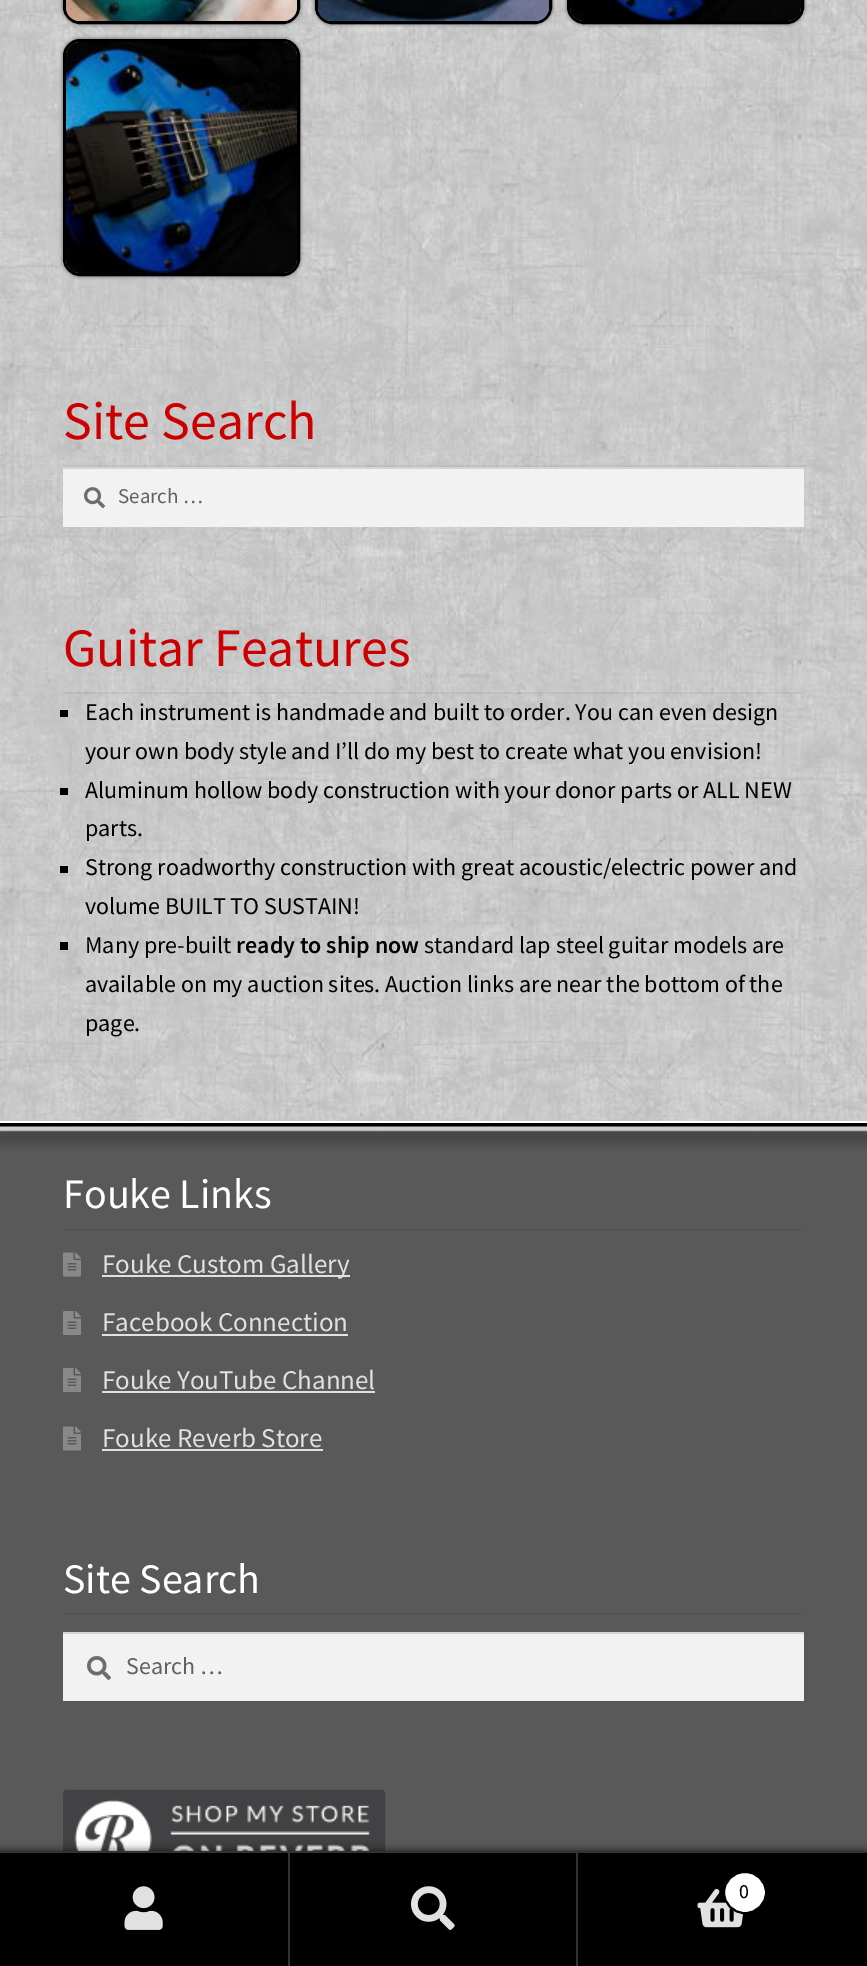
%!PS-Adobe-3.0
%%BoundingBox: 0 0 867 1966
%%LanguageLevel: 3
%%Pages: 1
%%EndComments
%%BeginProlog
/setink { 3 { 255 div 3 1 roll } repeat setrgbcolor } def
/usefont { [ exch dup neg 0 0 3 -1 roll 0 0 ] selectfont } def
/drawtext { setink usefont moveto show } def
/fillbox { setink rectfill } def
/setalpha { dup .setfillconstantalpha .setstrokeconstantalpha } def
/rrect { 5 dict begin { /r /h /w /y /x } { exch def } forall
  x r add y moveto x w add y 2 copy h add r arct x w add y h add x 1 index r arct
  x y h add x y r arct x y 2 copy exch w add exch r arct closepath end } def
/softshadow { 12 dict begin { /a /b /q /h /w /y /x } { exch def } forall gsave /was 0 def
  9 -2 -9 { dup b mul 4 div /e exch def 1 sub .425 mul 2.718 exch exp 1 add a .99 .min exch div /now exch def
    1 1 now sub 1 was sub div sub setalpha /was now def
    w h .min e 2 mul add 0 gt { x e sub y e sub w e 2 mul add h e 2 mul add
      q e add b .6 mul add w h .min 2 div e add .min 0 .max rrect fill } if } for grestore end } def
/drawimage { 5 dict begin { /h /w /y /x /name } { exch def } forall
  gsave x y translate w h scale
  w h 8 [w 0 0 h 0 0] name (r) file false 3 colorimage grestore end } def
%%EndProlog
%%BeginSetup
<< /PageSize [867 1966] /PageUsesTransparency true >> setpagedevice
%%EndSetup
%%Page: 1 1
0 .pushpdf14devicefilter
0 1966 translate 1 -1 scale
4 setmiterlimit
0 0 867 1966 255 255 255 fillbox
(assets/img1.rgb) 0 0 867 1121 drawimage
86 85 90 setink
63 -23 237 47 17 2 1 softshadow
0 0 0 setink
3 setlinewidth
64.5 -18.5 234 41 15.5 rrect stroke
(assets/img2.rgb) 66 0 231 21 drawimage
86 85 90 setink
315 -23 237 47 17 2 1 softshadow
0 0 0 setink
316.5 -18.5 234 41 15.5 rrect stroke
(assets/img3.rgb) 318 0 231 21 drawimage
86 85 90 setink
567 -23 237 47 17 2 1 softshadow
0 0 0 setink
568.5 -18.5 234 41 15.5 rrect stroke
(assets/img4.rgb) 570 0 231 21 drawimage
86 85 90 setink
63 39 237 237 17 2 1 softshadow
0 0 0 setink
64.5 40.5 234 234 15.5 rrect stroke
(assets/img5.rgb) 66 42 231 231 drawimage
0.05 setalpha
63 465 741 2 0 0 0 fillbox
1 setalpha
(Site Search) 63 439 /SourceSansPro-Regular 54 204 0 0 drawtext
63 469 741 58 242 242 242 fillbox
(assets/img6.rgb) 84 487 21 22 drawimage
63 467 741 2 212 212 212 fillbox
(Search …) 118 503 /SourceSansPro-Regular 21 97 97 97 drawtext
0.05 setalpha
63 692 741 2 0 0 0 fillbox
1 setalpha
(Guitar Features) 63 666 /SourceSansPro-Regular 54 204 0 0 drawtext
60 710 8 7 0 0 0 fillbox
(Each instrument is handmade and built to order. You can even design) 85 720 /SourceSansPro-Regular 24 0 0 0 drawtext
(your own body style and I’ll do my best to create what you envision!) 85 759 /SourceSansPro-Regular 24 0 0 0 drawtext
60 788 8 7 0 0 0 fillbox
(Aluminum hollow body construction with your donor parts or ALL NEW) 85 798 /SourceSansPro-Regular 24 0 0 0 drawtext
(parts.) 85 836 /SourceSansPro-Regular 24 0 0 0 drawtext
60 866 8 7 0 0 0 fillbox
(Strong roadworthy construction with great acoustic/electric power and) 85 875 /SourceSansPro-Regular 24 0 0 0 drawtext
(volume BUILT TO SUSTAIN!) 85 914 /SourceSansPro-Regular 24 0 0 0 drawtext
60 942 8 8 0 0 0 fillbox
(Many pre-built) 85 953 /SourceSansPro-Regular 24 0 0 0 drawtext
(ready to ship now) 236 953 /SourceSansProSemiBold-SemiBold 24 0 0 0 drawtext
(standard lap steel guitar models are) 424 953 /SourceSansPro-Regular 24 0 0 0 drawtext
(available on my auction sites. Auction links are near the bottom of the) 85 992 /SourceSansPro-Regular 24 0 0 0 drawtext
(page.) 85 1031 /SourceSansPro-Regular 24 0 0 0 drawtext
0 1130 867 721 89 89 89 fillbox
(assets/img7.rgb) 0 1123 867 27 drawimage
63 1229 741 2 85 85 85 fillbox
(Fouke Links) 63 1208 /SourceSansPro-Regular 42 255 255 255 drawtext
(assets/img8.rgb) 63 1252 18 25 drawimage
102 1275 248 2 225 225 225 fillbox
(Fouke Custom Gallery) 102 1273 /SourceSansPro-Regular 27 225 225 225 drawtext
(assets/img9.rgb) 63 1311 18 24 drawimage
(Facebook Connection) 102 1331 /SourceSansPro-Regular 27 225 225 225 drawtext
102 1334 246 2 225 225 225 fillbox
(assets/img9.rgb) 63 1368 18 24 drawimage
(Fouke YouTube Channel) 102 1389 /SourceSansPro-Regular 27 225 225 225 drawtext
102 1391 273 2 225 225 225 fillbox
(assets/img8.rgb) 63 1426 18 25 drawimage
(Fouke Reverb Store) 102 1447 /SourceSansPro-Regular 27 225 225 225 drawtext
102 1449 221 2 225 225 225 fillbox
63 1613 741 2 85 85 85 fillbox
(Site Search) 63 1593 /SourceSansPro-Regular 42 255 255 255 drawtext
63 1634 741 67 242 242 242 fillbox
(assets/img10.rgb) 87 1656 24 24 drawimage
63 1632 741 2 212 212 212 fillbox
(Search …) 126 1674 /SourceSansPro-Regular 24 97 97 97 drawtext
(assets/img11.rgb) 63 1789 323 62 drawimage
0 0 0 setink
0 1851 867 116 0 4.5 0.7 softshadow
0 1851 867 2 51 51 51 fillbox
0 1853 288 113 0 0 0 fillbox
288 1853 2 113 51 51 51 fillbox
(assets/img12.rgb) 124 1886 39 44 drawimage
290 1853 286 113 0 0 0 fillbox
576 1853 2 113 51 51 51 fillbox
(assets/img13.rgb) 411 1886 44 44 drawimage
578 1853 289 113 0 0 0 fillbox
(assets/img14.rgb) 697 1889 47 39 drawimage
255 255 255 setink
724 1872 42 41 20.5 rrect gsave fill grestore
0 0 0 setink
2 setlinewidth
stroke
(0) 739 1898 /SourceSansPro-Regular 20 0 0 0 drawtext
.poppdf14devicefilter showpage
%%EOF
